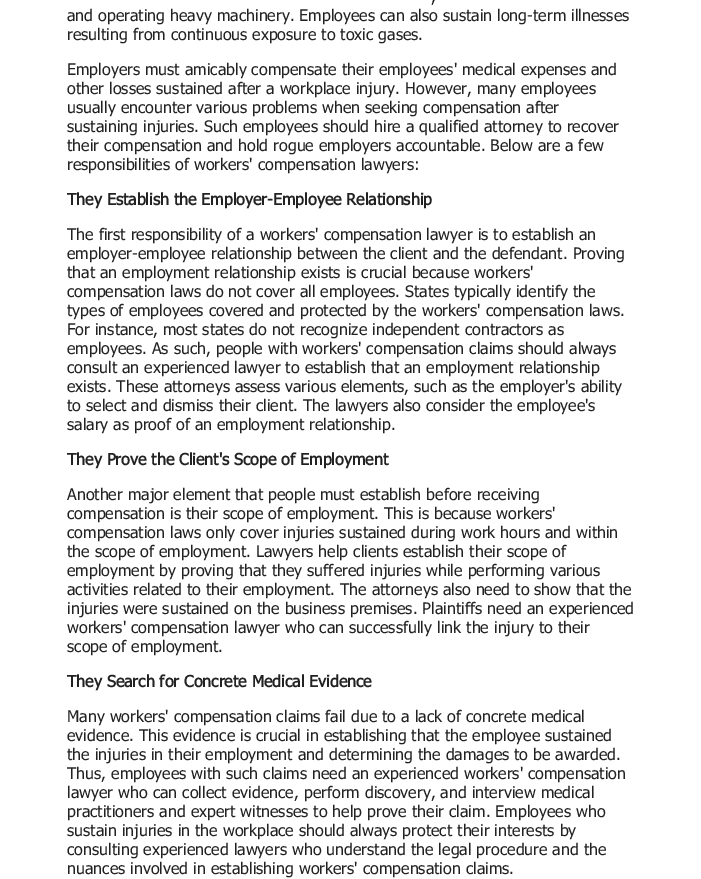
%!PS-Adobe-3.0
%%BoundingBox: 0 0 701 879
%%LanguageLevel: 3
%%Pages: 1
%%EndComments
%%BeginProlog
/setink { 3 { 255 div 3 1 roll } repeat setrgbcolor } def
/usefont { [ exch dup neg 0 0 3 -1 roll 0 0 ] selectfont } def
/drawtext { setink usefont moveto show } def
/fillbox { setink rectfill } def
%%EndProlog
%%BeginSetup
<< /PageSize [701 879] >> setpagedevice
%%EndSetup
%%Page: 1 1
0 879 translate 1 -1 scale
4 setmiterlimit
0 0 701 879 255 255 255 fillbox
(,) 431 2 /Tahoma-Regular 16 34 34 34 drawtext
(and operating heavy machinery. Employees can also sustain long-term illnesses) 67 21 /Tahoma-Regular 16 34 34 34 drawtext
(resulting from continuous exposure to toxic gases.) 67 40 /Tahoma-Regular 16 34 34 34 drawtext
(Employers must amicably compensate their employees' medical expenses and) 67 75 /Tahoma-Regular 16 34 34 34 drawtext
(other losses sustained after a workplace injury. However, many employees) 67 94 /Tahoma-Regular 16 34 34 34 drawtext
(usually encounter various problems when seeking compensation after) 67 113 /Tahoma-Regular 16 34 34 34 drawtext
(sustaining injuries. Such employees should hire a qualified attorney to recover) 67 132 /Tahoma-Regular 16 34 34 34 drawtext
(their compensation and hold rogue employers accountable. Below are a few) 67 151 /Tahoma-Regular 16 34 34 34 drawtext
(responsibilities of workers' compensation lawyers:) 67 170 /Tahoma-Regular 16 34 34 34 drawtext
(They Establish the Employer-Employee Relationship) 67 205 /Tahoma-Bold 16 34 34 34 drawtext
(The first responsibility of a workers' compensation lawyer is to establish an) 67 240 /Tahoma-Regular 16 34 34 34 drawtext
(employer-employee relationship between the client and the defendant. Proving) 67 259 /Tahoma-Regular 16 34 34 34 drawtext
(that an employment relationship exists is crucial because workers') 67 278 /Tahoma-Regular 16 34 34 34 drawtext
(compensation laws do not cover all employees. States typically identify the) 67 297 /Tahoma-Regular 16 34 34 34 drawtext
(types of employees covered and protected by the workers' compensation laws.) 67 316 /Tahoma-Regular 16 34 34 34 drawtext
(For instance, most states do not recognize independent contractors as) 67 335 /Tahoma-Regular 16 34 34 34 drawtext
(employees. As such, people with workers' compensation claims should always) 67 354 /Tahoma-Regular 16 34 34 34 drawtext
(consult an experienced lawyer to establish that an employment relationship) 67 373 /Tahoma-Regular 16 34 34 34 drawtext
(exists. These attorneys assess various elements, such as the employer's ability) 67 392 /Tahoma-Regular 16 34 34 34 drawtext
(to select and dismiss their client. The lawyers also consider the employee's) 67 411 /Tahoma-Regular 16 34 34 34 drawtext
(salary as proof of an employment relationship.) 67 430 /Tahoma-Regular 16 34 34 34 drawtext
(They Prove the Client's Scope of Employment) 67 465 /Tahoma-Bold 16 34 34 34 drawtext
(Another major element that people must establish before receiving) 67 500 /Tahoma-Regular 16 34 34 34 drawtext
(compensation is their scope of employment. This is because workers') 67 519 /Tahoma-Regular 16 34 34 34 drawtext
(compensation laws only cover injuries sustained during work hours and within) 67 538 /Tahoma-Regular 16 34 34 34 drawtext
(the scope of employment. Lawyers help clients establish their scope of) 67 557 /Tahoma-Regular 16 34 34 34 drawtext
(employment by proving that they suffered injuries while performing various) 67 576 /Tahoma-Regular 16 34 34 34 drawtext
(activities related to their employment. The attorneys also need to show that the) 67 595 /Tahoma-Regular 16 34 34 34 drawtext
(injuries were sustained on the business premises. Plaintiffs need an experienced) 67 614 /Tahoma-Regular 16 34 34 34 drawtext
(workers' compensation lawyer who can successfully link the injury to their) 67 633 /Tahoma-Regular 16 34 34 34 drawtext
(scope of employment.) 67 652 /Tahoma-Regular 16 34 34 34 drawtext
(They Search for Concrete Medical Evidence) 67 687 /Tahoma-Bold 16 34 34 34 drawtext
(Many workers' compensation claims fail due to a lack of concrete medical) 67 722 /Tahoma-Regular 16 34 34 34 drawtext
(evidence. This evidence is crucial in establishing that the employee sustained) 67 741 /Tahoma-Regular 16 34 34 34 drawtext
(the injuries in their employment and determining the damages to be awarded.) 67 760 /Tahoma-Regular 16 34 34 34 drawtext
(Thus, employees with such claims need an experienced workers' compensation) 67 779 /Tahoma-Regular 16 34 34 34 drawtext
(lawyer who can collect evidence, perform discovery, and interview medical) 67 798 /Tahoma-Regular 16 34 34 34 drawtext
(practitioners and expert witnesses to help prove their claim. Employees who) 67 817 /Tahoma-Regular 16 34 34 34 drawtext
(sustain injuries in the workplace should always protect their interests by) 67 836 /Tahoma-Regular 16 34 34 34 drawtext
(consulting experienced lawyers who understand the legal procedure and the) 67 855 /Tahoma-Regular 16 34 34 34 drawtext
(nuances involved in establishing workers' compensation claims.) 67 874 /Tahoma-Regular 16 34 34 34 drawtext
showpage
%%EOF
